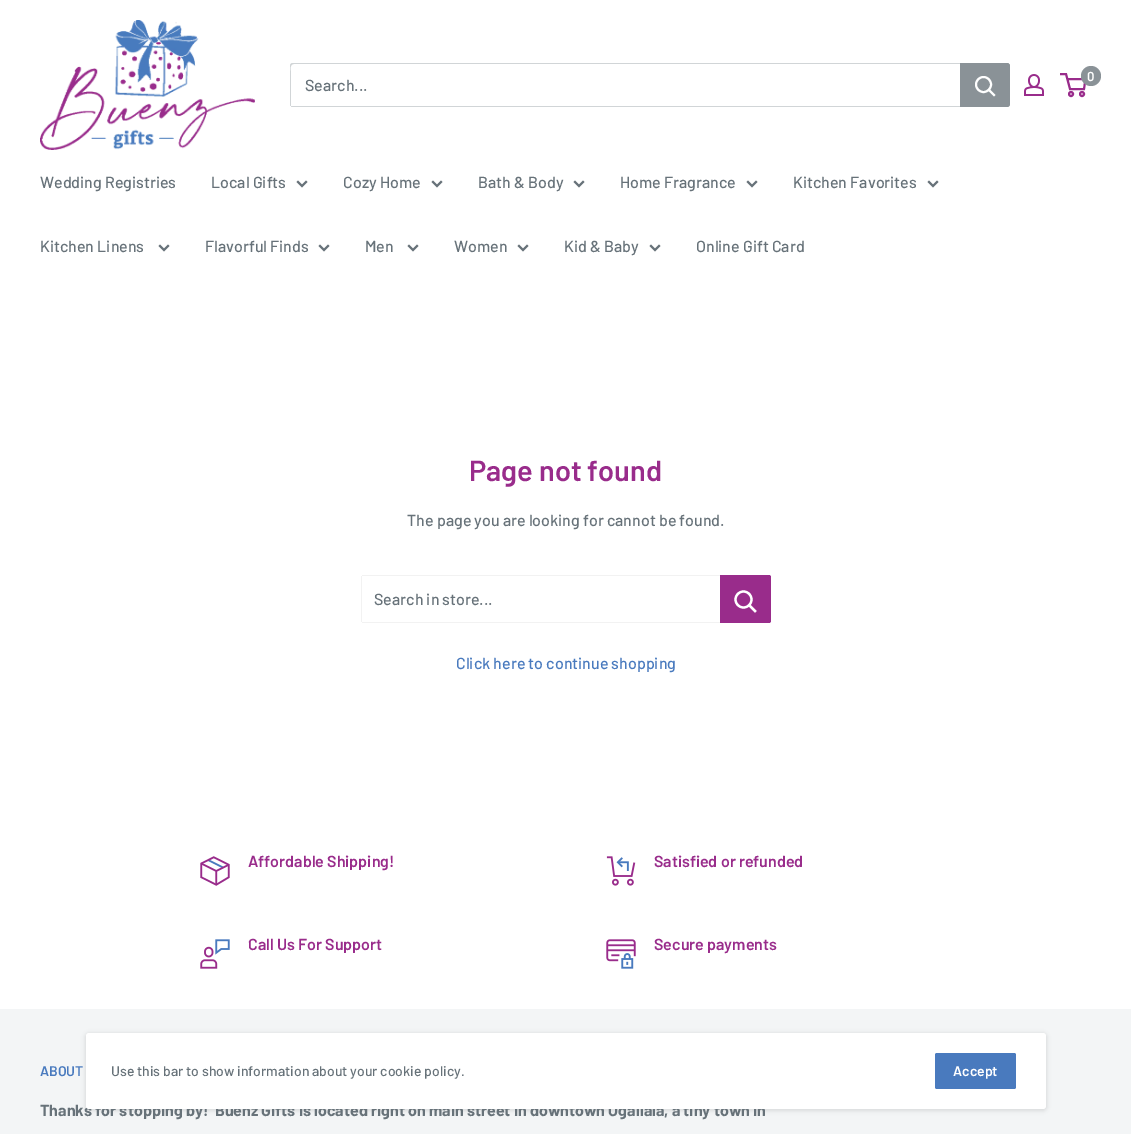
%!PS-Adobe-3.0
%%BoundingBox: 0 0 1131 1134
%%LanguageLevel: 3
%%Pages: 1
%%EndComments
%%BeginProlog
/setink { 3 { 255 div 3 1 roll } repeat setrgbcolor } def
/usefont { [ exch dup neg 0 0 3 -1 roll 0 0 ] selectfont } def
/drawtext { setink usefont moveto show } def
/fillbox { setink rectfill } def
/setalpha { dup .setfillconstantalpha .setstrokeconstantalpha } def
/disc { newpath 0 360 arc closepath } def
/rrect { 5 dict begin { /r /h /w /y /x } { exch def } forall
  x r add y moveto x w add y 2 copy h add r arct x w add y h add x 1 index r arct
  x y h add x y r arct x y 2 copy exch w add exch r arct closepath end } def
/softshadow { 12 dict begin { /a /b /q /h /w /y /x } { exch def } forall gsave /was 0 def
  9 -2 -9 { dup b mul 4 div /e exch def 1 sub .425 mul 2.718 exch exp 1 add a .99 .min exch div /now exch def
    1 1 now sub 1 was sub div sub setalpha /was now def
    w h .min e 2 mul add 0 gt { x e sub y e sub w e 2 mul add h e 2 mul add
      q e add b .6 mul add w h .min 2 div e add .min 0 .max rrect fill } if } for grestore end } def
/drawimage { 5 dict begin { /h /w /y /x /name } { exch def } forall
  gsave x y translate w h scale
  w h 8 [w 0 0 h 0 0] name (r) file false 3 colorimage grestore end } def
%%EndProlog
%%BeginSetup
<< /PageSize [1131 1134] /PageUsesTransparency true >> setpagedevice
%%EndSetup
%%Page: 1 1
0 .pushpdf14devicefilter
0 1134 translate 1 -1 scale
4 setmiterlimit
0 0 1131 1134 255 255 255 fillbox
(assets/img1.rgb) 40 20 215 130 drawimage
(assets/img2.rgb) 1024 74 20 22 drawimage
153 44 139 setink
2 setlinewidth
1071 94 2 disc stroke
1082 94 2 disc stroke
1067.5 79 moveto 1085.5 79 lineto 1084 89 lineto 1070 89 lineto 1066 74 lineto 1060 74 lineto stroke
138 146 151 setink
1091 76 10 disc fill
(0) 1087 81 /Barlow-SemiBold 13 255 255 255 drawtext
209 213 215 setink
291 106 moveto 291 107 292 107 293 107 curveto 1007 107 lineto 1009 107 1010 106 1010 104 curveto 1010 66 lineto 1010 65 1010 64 1009 64 curveto 1009 97 lineto 1009 99 1011 106 1006 106 curveto closepath fill
294 64 moveto 1009 64 lineto 1009 63 1008 63 1007 63 curveto 293 63 lineto 291 63 290 64 290 66 curveto 290 104 lineto 290 105 290 106 291 106 curveto 291 73 lineto 291 71 289 64 294 64 curveto closepath fill
(Search...) 305 91 /Barlow-Medium 16 103 114 121 drawtext
138 146 151 setink
960 63 moveto 1007 63 lineto 1008.5 63 1010 64.5 1010 66 curveto 1010 104 lineto 1010 105.5 1008.5 107 1007 107 curveto 960 107 lineto closepath fill
255 255 255 setink
2 setlinecap
994 95 moveto 989 90 lineto stroke
0 setlinecap
983.5 84.5 7.5 disc stroke
(Wedding Registries) 40 188 /Barlow-Medium 16 103 114 121 drawtext
(Local Gifts) 211 188 /Barlow-Medium 16 103 114 121 drawtext
2 setlinecap
306 182 moveto 302 186 lineto 298 182 lineto stroke
(Cozy Home) 343 188 /Barlow-Medium 16 103 114 121 drawtext
441 182 moveto 437 186 lineto 433 182 lineto stroke
(Bath & Body) 478 188 /Barlow-Medium 16 103 114 121 drawtext
583 182 moveto 579 186 lineto 575 182 lineto stroke
(Home Fragrance) 620 188 /Barlow-Medium 16 103 114 121 drawtext
756 182 moveto 752 186 lineto 748 182 lineto stroke
(Kitchen Favorites) 793 188 /Barlow-Medium 16 103 114 121 drawtext
937 182 moveto 933 186 lineto 929 182 lineto stroke
(Kitchen Linens) 40 252 /Barlow-Medium 16 103 114 121 drawtext
168 246 moveto 164 250 lineto 160 246 lineto stroke
(Flavorful Finds) 205 252 /Barlow-Medium 16 103 114 121 drawtext
328 246 moveto 324 250 lineto 320 246 lineto stroke
(Men) 365 252 /Barlow-Medium 16 103 114 121 drawtext
417 246 moveto 413 250 lineto 409 246 lineto stroke
(Women) 454 252 /Barlow-Medium 16 103 114 121 drawtext
527 246 moveto 523 250 lineto 519 246 lineto stroke
(Kid & Baby) 564 252 /Barlow-Medium 16 103 114 121 drawtext
659 246 moveto 655 250 lineto 651 246 lineto stroke
(Online Gift Card) 696 252 /Barlow-Medium 16 103 114 121 drawtext
(Page not found) 469 481 /Barlow-SemiBold 29 153 44 139 drawtext
(The page you are looking for cannot be found.) 407 526 /Barlow-Medium 16 103 114 121 drawtext
362 575 358 1 242 242 242 fillbox
362 622 358 1 242 242 242 fillbox
361 576 1 46 242 242 242 fillbox
(Search in store...) 374 605 /Barlow-Medium 16 103 114 121 drawtext
153 44 139 setink
720 575 moveto 769 575 lineto 770 575 771 576 771 577 curveto 771 621 lineto 771 622 770 623 769 623 curveto 720 623 lineto closepath fill
255 255 255 setink
2.2 setlinewidth
755 611 moveto 749.5 605.5 lineto stroke
0 setlinecap
743.5 599.5 8 disc stroke
(Click here to continue shopping) 456 669 /Barlow-Medium 16 73 122 190 drawtext
(assets/img3.rgb) 200 856 30 30 drawimage
(Affordable Shipping!) 248 867 /Barlow-SemiBold 16 153 44 139 drawtext
(assets/img4.rgb) 606 856 30 30 drawimage
(Satisfied or refunded) 654 867 /Barlow-SemiBold 16 153 44 139 drawtext
(assets/img5.rgb) 200 939 30 30 drawimage
(Call Us For Support) 248 950 /Barlow-SemiBold 16 153 44 139 drawtext
(assets/img6.rgb) 606 939 30 30 drawimage
(Secure payments) 654 950 /Barlow-SemiBold 16 153 44 139 drawtext
0 1009 1131 125 243 245 246 fillbox
0 0 0 setink
85 1033 962 78 4 2 0.1 softshadow
(Thanks for stopping by!  Buenz Gifts is located right on main street in downtown Ogallala, a tiny town in) 40 1116 /Barlow-Bold 16 103 114 121 drawtext
255 255 255 setink
86 1033 960 76 3 rrect fill
(Use this bar to show information about your cookie policy.) 111 1076 /Barlow-Medium 14 103 114 121 drawtext
73 122 190 setink
935 1053 81 36 2 rrect fill
(Accept) 953 1076 /Barlow-SemiBold 14 255 255 255 drawtext
(ABOUT) 40 1076 /Barlow-SemiBold 14 73 122 190 drawtext
.poppdf14devicefilter showpage
%%EOF
